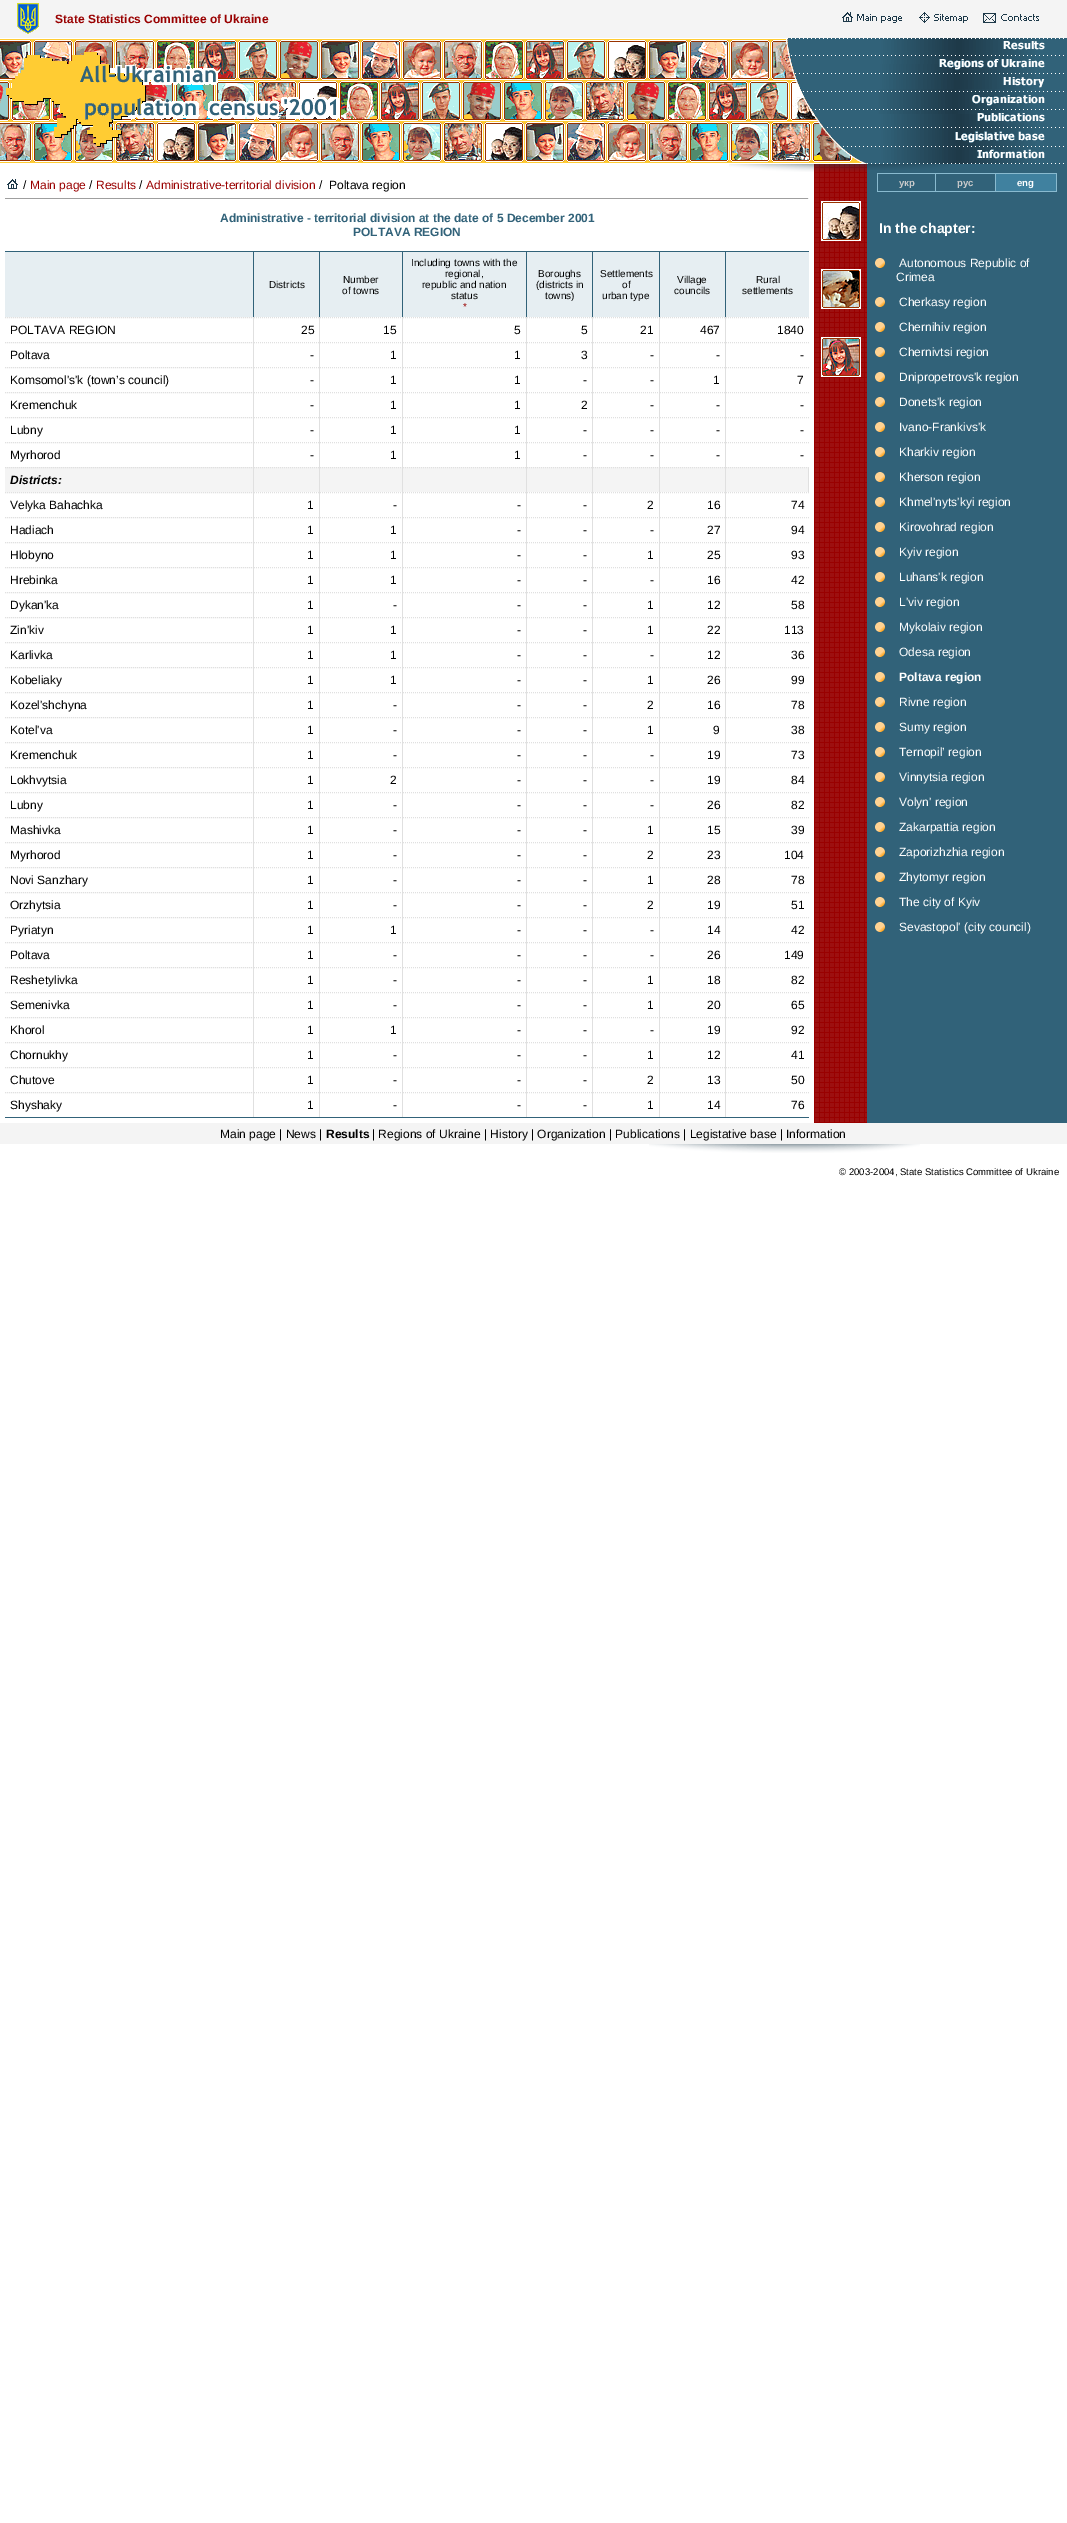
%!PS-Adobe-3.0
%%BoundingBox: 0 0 1067 2523
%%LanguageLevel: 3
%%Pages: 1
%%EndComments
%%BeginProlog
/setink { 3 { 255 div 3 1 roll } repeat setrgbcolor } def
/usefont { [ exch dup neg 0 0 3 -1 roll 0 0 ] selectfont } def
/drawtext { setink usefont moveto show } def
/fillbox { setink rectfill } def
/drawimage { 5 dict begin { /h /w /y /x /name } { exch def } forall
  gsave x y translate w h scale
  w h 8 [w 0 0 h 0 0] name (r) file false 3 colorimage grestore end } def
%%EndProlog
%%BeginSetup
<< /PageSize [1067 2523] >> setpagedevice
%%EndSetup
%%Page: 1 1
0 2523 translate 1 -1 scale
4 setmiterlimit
0 0 1067 2523 255 255 255 fillbox
0 0 1067 38 244 244 244 fillbox
(assets/img1.rgb) 17 3 22 31 drawimage
(State Statistics Committee of Ukraine) 55 23 /LiberationSans-Bold 12 153 0 0 drawtext
(assets/img2.rgb) 842 12 60 11 drawimage
(assets/img3.rgb) 919 12 49 11 drawimage
(assets/img4.rgb) 983 13 56 10 drawimage
(assets/img5.rgb) 0 38 786 126 drawimage
(assets/img6.rgb) 6 52 333 95 drawimage
786 60 21 100 49 98 121 fillbox
(assets/img7.rgb) 786 38 81 126 drawimage
1064 38 3 126 49 98 121 fillbox
(assets/img8.rgb) 867 38 197 126 drawimage
(assets/img9.rgb) 1003 41 42 9 drawimage
(assets/img10.rgb) 939 59 106 11 drawimage
(assets/img11.rgb) 1003 77 42 11 drawimage
(assets/img12.rgb) 972 95 73 11 drawimage
(assets/img13.rgb) 977 113 68 9 drawimage
(assets/img14.rgb) 955 131 90 12 drawimage
(assets/img15.rgb) 977 149 68 10 drawimage
(assets/img16.rgb) 729 164 138 8 drawimage
867 164 200 8 49 98 121 fillbox
(assets/img17.rgb) 867 164 82 6 drawimage
(assets/img18.rgb) 7 179 11 10 drawimage
(/) 23 189 /LiberationSans-Regular 12 0 0 0 drawtext
(Main page) 30 189 /LiberationSans-Regular 12 153 0 0 drawtext
(/) 89 189 /LiberationSans-Regular 12 0 0 0 drawtext
(Results) 96 189 /LiberationSans-Regular 12 153 0 0 drawtext
(/) 139 189 /LiberationSans-Regular 12 0 0 0 drawtext
(Administrative-territorial division) 146 189 /LiberationSans-Regular 12 153 0 0 drawtext
(/  Poltava region) 319 189 /LiberationSans-Regular 12 0 0 0 drawtext
5 198 804 1 159 159 159 fillbox
808 198 1 1 238 238 238 fillbox
(Administrative - territorial division at the date of 5 December 2001) 220 222 /LiberationSans-Bold 12 49 98 121 drawtext
(POLTAVA REGION) 353 236 /LiberationSans-Bold 12 49 98 121 drawtext
5 251 804 1 49 98 121 fillbox
5 1117 804 1 49 98 121 fillbox
5 252 804 65 230 238 242 fillbox
253 252 1 65 49 98 121 fillbox
319 252 1 65 49 98 121 fillbox
(Districts) 269 288 /LiberationSans-Regular 10 0 0 0 drawtext
402 252 1 65 49 98 121 fillbox
(Number) 343 283 /LiberationSans-Regular 10 0 0 0 drawtext
(of towns) 342 294 /LiberationSans-Regular 10 0 0 0 drawtext
526 252 1 65 49 98 121 fillbox
(Including towns with the) 411 266 /LiberationSans-Regular 10 0 0 0 drawtext
(regional,) 445 277 /LiberationSans-Regular 10 0 0 0 drawtext
(republic and nation) 422 288 /LiberationSans-Regular 10 0 0 0 drawtext
(status) 451 299 /LiberationSans-Regular 10 0 0 0 drawtext
(*) 463 310 /LiberationSans-Regular 10 153 0 0 drawtext
592 252 1 65 49 98 121 fillbox
(Boroughs) 538 277 /LiberationSans-Regular 10 0 0 0 drawtext
(\(districts in) 536 288 /LiberationSans-Regular 10 0 0 0 drawtext
(towns\)) 545 299 /LiberationSans-Regular 10 0 0 0 drawtext
659 252 1 65 49 98 121 fillbox
(Settlements) 600 277 /LiberationSans-Regular 10 0 0 0 drawtext
(of) 622 288 /LiberationSans-Regular 10 0 0 0 drawtext
(urban type) 602 299 /LiberationSans-Regular 10 0 0 0 drawtext
725 252 1 65 49 98 121 fillbox
(Village) 677 283 /LiberationSans-Regular 10 0 0 0 drawtext
(councils) 674 294 /LiberationSans-Regular 10 0 0 0 drawtext
(Rural) 756 283 /LiberationSans-Regular 10 0 0 0 drawtext
(settlements) 742 294 /LiberationSans-Regular 10 0 0 0 drawtext
224 224 224 setink
[1 1] 0 setdash
5 317.5 moveto 254 317.5 lineto stroke
253 317 1 25 224 224 224 fillbox
(POLTAVA REGION) 10 334 /LiberationSans-Regular 12 0 0 0 drawtext
224 224 224 setink
254 317.5 moveto 320 317.5 lineto stroke
319 317 1 425 224 224 224 fillbox
(25) 301 334 /LiberationSans-Regular 12 0 0 0 drawtext
224 224 224 setink
320 317.5 moveto 403 317.5 lineto stroke
402 317 1 25 224 224 224 fillbox
(15) 383 334 /LiberationSans-Regular 12 0 0 0 drawtext
224 224 224 setink
403 317.5 moveto 527 317.5 lineto stroke
526 317 1 425 224 224 224 fillbox
(5) 514 334 /LiberationSans-Regular 12 0 0 0 drawtext
224 224 224 setink
527 317.5 moveto 593 317.5 lineto stroke
592 317 1 425 224 224 224 fillbox
(5) 581 334 /LiberationSans-Regular 12 0 0 0 drawtext
224 224 224 setink
593 317.5 moveto 660 317.5 lineto stroke
659 317 1 25 224 224 224 fillbox
(21) 640 334 /LiberationSans-Regular 12 0 0 0 drawtext
224 224 224 setink
660 317.5 moveto 726 317.5 lineto stroke
725 317 1 425 224 224 224 fillbox
(467) 700 334 /LiberationSans-Regular 12 0 0 0 drawtext
224 224 224 setink
726 317.5 moveto 809 317.5 lineto stroke
(1840) 777 334 /LiberationSans-Regular 12 0 0 0 drawtext
224 224 224 setink
5 342.5 moveto 254 342.5 lineto stroke
253 342 1 25 224 224 224 fillbox
(Poltava) 10 359 /LiberationSans-Regular 12 0 0 0 drawtext
224 224 224 setink
254 342.5 moveto 320 342.5 lineto stroke
(-) 310 359 /LiberationSans-Regular 12 0 0 0 drawtext
224 224 224 setink
320 342.5 moveto 403 342.5 lineto stroke
402 342 1 25 224 224 224 fillbox
(1) 390 359 /LiberationSans-Regular 12 0 0 0 drawtext
224 224 224 setink
403 342.5 moveto 527 342.5 lineto stroke
(1) 514 359 /LiberationSans-Regular 12 0 0 0 drawtext
224 224 224 setink
527 342.5 moveto 593 342.5 lineto stroke
(3) 581 359 /LiberationSans-Regular 12 0 0 0 drawtext
224 224 224 setink
593 342.5 moveto 660 342.5 lineto stroke
659 342 1 25 224 224 224 fillbox
(-) 650 359 /LiberationSans-Regular 12 0 0 0 drawtext
224 224 224 setink
660 342.5 moveto 726 342.5 lineto stroke
(-) 716 359 /LiberationSans-Regular 12 0 0 0 drawtext
224 224 224 setink
726 342.5 moveto 809 342.5 lineto stroke
(-) 800 359 /LiberationSans-Regular 12 0 0 0 drawtext
224 224 224 setink
5 367.5 moveto 254 367.5 lineto stroke
253 367 1 25 224 224 224 fillbox
(Komsomol's'k \(town’s council\)) 10 384 /LiberationSans-Regular 12 0 0 0 drawtext
224 224 224 setink
254 367.5 moveto 320 367.5 lineto stroke
(-) 310 384 /LiberationSans-Regular 12 0 0 0 drawtext
224 224 224 setink
320 367.5 moveto 403 367.5 lineto stroke
402 367 1 25 224 224 224 fillbox
(1) 390 384 /LiberationSans-Regular 12 0 0 0 drawtext
224 224 224 setink
403 367.5 moveto 527 367.5 lineto stroke
(1) 514 384 /LiberationSans-Regular 12 0 0 0 drawtext
224 224 224 setink
527 367.5 moveto 593 367.5 lineto stroke
(-) 583 384 /LiberationSans-Regular 12 0 0 0 drawtext
224 224 224 setink
593 367.5 moveto 660 367.5 lineto stroke
659 367 1 25 224 224 224 fillbox
(-) 650 384 /LiberationSans-Regular 12 0 0 0 drawtext
224 224 224 setink
660 367.5 moveto 726 367.5 lineto stroke
(1) 713 384 /LiberationSans-Regular 12 0 0 0 drawtext
224 224 224 setink
726 367.5 moveto 809 367.5 lineto stroke
(7) 797 384 /LiberationSans-Regular 12 0 0 0 drawtext
224 224 224 setink
5 392.5 moveto 254 392.5 lineto stroke
253 392 1 25 224 224 224 fillbox
(Kremenchuk) 10 409 /LiberationSans-Regular 12 0 0 0 drawtext
224 224 224 setink
254 392.5 moveto 320 392.5 lineto stroke
(-) 310 409 /LiberationSans-Regular 12 0 0 0 drawtext
224 224 224 setink
320 392.5 moveto 403 392.5 lineto stroke
402 392 1 25 224 224 224 fillbox
(1) 390 409 /LiberationSans-Regular 12 0 0 0 drawtext
224 224 224 setink
403 392.5 moveto 527 392.5 lineto stroke
(1) 514 409 /LiberationSans-Regular 12 0 0 0 drawtext
224 224 224 setink
527 392.5 moveto 593 392.5 lineto stroke
(2) 581 409 /LiberationSans-Regular 12 0 0 0 drawtext
224 224 224 setink
593 392.5 moveto 660 392.5 lineto stroke
659 392 1 25 224 224 224 fillbox
(-) 650 409 /LiberationSans-Regular 12 0 0 0 drawtext
224 224 224 setink
660 392.5 moveto 726 392.5 lineto stroke
(-) 716 409 /LiberationSans-Regular 12 0 0 0 drawtext
224 224 224 setink
726 392.5 moveto 809 392.5 lineto stroke
(-) 800 409 /LiberationSans-Regular 12 0 0 0 drawtext
224 224 224 setink
5 417.5 moveto 254 417.5 lineto stroke
253 417 1 25 224 224 224 fillbox
(Lubny) 10 434 /LiberationSans-Regular 12 0 0 0 drawtext
224 224 224 setink
254 417.5 moveto 320 417.5 lineto stroke
(-) 310 434 /LiberationSans-Regular 12 0 0 0 drawtext
224 224 224 setink
320 417.5 moveto 403 417.5 lineto stroke
402 417 1 25 224 224 224 fillbox
(1) 390 434 /LiberationSans-Regular 12 0 0 0 drawtext
224 224 224 setink
403 417.5 moveto 527 417.5 lineto stroke
(1) 514 434 /LiberationSans-Regular 12 0 0 0 drawtext
224 224 224 setink
527 417.5 moveto 593 417.5 lineto stroke
(-) 583 434 /LiberationSans-Regular 12 0 0 0 drawtext
224 224 224 setink
593 417.5 moveto 660 417.5 lineto stroke
659 417 1 25 224 224 224 fillbox
(-) 650 434 /LiberationSans-Regular 12 0 0 0 drawtext
224 224 224 setink
660 417.5 moveto 726 417.5 lineto stroke
(-) 716 434 /LiberationSans-Regular 12 0 0 0 drawtext
224 224 224 setink
726 417.5 moveto 809 417.5 lineto stroke
(-) 800 434 /LiberationSans-Regular 12 0 0 0 drawtext
224 224 224 setink
5 442.5 moveto 254 442.5 lineto stroke
253 442 1 25 224 224 224 fillbox
(Myrhorod) 10 459 /LiberationSans-Regular 12 0 0 0 drawtext
224 224 224 setink
254 442.5 moveto 320 442.5 lineto stroke
(-) 310 459 /LiberationSans-Regular 12 0 0 0 drawtext
224 224 224 setink
320 442.5 moveto 403 442.5 lineto stroke
402 442 1 25 224 224 224 fillbox
(1) 390 459 /LiberationSans-Regular 12 0 0 0 drawtext
224 224 224 setink
403 442.5 moveto 527 442.5 lineto stroke
(1) 514 459 /LiberationSans-Regular 12 0 0 0 drawtext
224 224 224 setink
527 442.5 moveto 593 442.5 lineto stroke
(-) 583 459 /LiberationSans-Regular 12 0 0 0 drawtext
224 224 224 setink
593 442.5 moveto 660 442.5 lineto stroke
659 442 1 25 224 224 224 fillbox
(-) 650 459 /LiberationSans-Regular 12 0 0 0 drawtext
224 224 224 setink
660 442.5 moveto 726 442.5 lineto stroke
(-) 716 459 /LiberationSans-Regular 12 0 0 0 drawtext
224 224 224 setink
726 442.5 moveto 809 442.5 lineto stroke
(-) 800 459 /LiberationSans-Regular 12 0 0 0 drawtext
5 467 248 25 244 244 244 fillbox
224 224 224 setink
5 467.5 moveto 254 467.5 lineto stroke
253 467 1 25 224 224 224 fillbox
(Districts:) 10 484 /LiberationSans-BoldItalic 12 0 0 0 drawtext
254 467 65 25 244 244 244 fillbox
224 224 224 setink
254 467.5 moveto 320 467.5 lineto stroke
320 467 82 25 244 244 244 fillbox
224 224 224 setink
320 467.5 moveto 403 467.5 lineto stroke
402 467 1 25 224 224 224 fillbox
403 467 123 25 244 244 244 fillbox
224 224 224 setink
403 467.5 moveto 527 467.5 lineto stroke
527 467 65 25 244 244 244 fillbox
224 224 224 setink
527 467.5 moveto 593 467.5 lineto stroke
593 467 66 25 244 244 244 fillbox
224 224 224 setink
593 467.5 moveto 660 467.5 lineto stroke
659 467 1 25 224 224 224 fillbox
660 467 65 25 244 244 244 fillbox
224 224 224 setink
660 467.5 moveto 726 467.5 lineto stroke
726 467 82 25 244 244 244 fillbox
224 224 224 setink
726 467.5 moveto 809 467.5 lineto stroke
808 467 1 25 224 224 224 fillbox
5 492.5 moveto 254 492.5 lineto stroke
253 492 1 25 224 224 224 fillbox
(Velyka Bahachka) 10 509 /LiberationSans-Regular 12 0 0 0 drawtext
224 224 224 setink
254 492.5 moveto 320 492.5 lineto stroke
(1) 307 509 /LiberationSans-Regular 12 0 0 0 drawtext
224 224 224 setink
320 492.5 moveto 403 492.5 lineto stroke
402 492 1 25 224 224 224 fillbox
(-) 393 509 /LiberationSans-Regular 12 0 0 0 drawtext
224 224 224 setink
403 492.5 moveto 527 492.5 lineto stroke
(-) 517 509 /LiberationSans-Regular 12 0 0 0 drawtext
224 224 224 setink
527 492.5 moveto 593 492.5 lineto stroke
(-) 583 509 /LiberationSans-Regular 12 0 0 0 drawtext
224 224 224 setink
593 492.5 moveto 660 492.5 lineto stroke
659 492 1 25 224 224 224 fillbox
(2) 647 509 /LiberationSans-Regular 12 0 0 0 drawtext
224 224 224 setink
660 492.5 moveto 726 492.5 lineto stroke
(16) 707 509 /LiberationSans-Regular 12 0 0 0 drawtext
224 224 224 setink
726 492.5 moveto 809 492.5 lineto stroke
(74) 791 509 /LiberationSans-Regular 12 0 0 0 drawtext
224 224 224 setink
5 517.5 moveto 254 517.5 lineto stroke
253 517 1 25 224 224 224 fillbox
(Hadiach) 10 534 /LiberationSans-Regular 12 0 0 0 drawtext
224 224 224 setink
254 517.5 moveto 320 517.5 lineto stroke
(1) 307 534 /LiberationSans-Regular 12 0 0 0 drawtext
224 224 224 setink
320 517.5 moveto 403 517.5 lineto stroke
402 517 1 25 224 224 224 fillbox
(1) 390 534 /LiberationSans-Regular 12 0 0 0 drawtext
224 224 224 setink
403 517.5 moveto 527 517.5 lineto stroke
(-) 517 534 /LiberationSans-Regular 12 0 0 0 drawtext
224 224 224 setink
527 517.5 moveto 593 517.5 lineto stroke
(-) 583 534 /LiberationSans-Regular 12 0 0 0 drawtext
224 224 224 setink
593 517.5 moveto 660 517.5 lineto stroke
659 517 1 25 224 224 224 fillbox
(-) 650 534 /LiberationSans-Regular 12 0 0 0 drawtext
224 224 224 setink
660 517.5 moveto 726 517.5 lineto stroke
(27) 707 534 /LiberationSans-Regular 12 0 0 0 drawtext
224 224 224 setink
726 517.5 moveto 809 517.5 lineto stroke
(94) 791 534 /LiberationSans-Regular 12 0 0 0 drawtext
224 224 224 setink
5 542.5 moveto 254 542.5 lineto stroke
253 542 1 25 224 224 224 fillbox
(Hlobyno) 10 559 /LiberationSans-Regular 12 0 0 0 drawtext
224 224 224 setink
254 542.5 moveto 320 542.5 lineto stroke
(1) 307 559 /LiberationSans-Regular 12 0 0 0 drawtext
224 224 224 setink
320 542.5 moveto 403 542.5 lineto stroke
402 542 1 25 224 224 224 fillbox
(1) 390 559 /LiberationSans-Regular 12 0 0 0 drawtext
224 224 224 setink
403 542.5 moveto 527 542.5 lineto stroke
(-) 517 559 /LiberationSans-Regular 12 0 0 0 drawtext
224 224 224 setink
527 542.5 moveto 593 542.5 lineto stroke
(-) 583 559 /LiberationSans-Regular 12 0 0 0 drawtext
224 224 224 setink
593 542.5 moveto 660 542.5 lineto stroke
659 542 1 25 224 224 224 fillbox
(1) 647 559 /LiberationSans-Regular 12 0 0 0 drawtext
224 224 224 setink
660 542.5 moveto 726 542.5 lineto stroke
(25) 707 559 /LiberationSans-Regular 12 0 0 0 drawtext
224 224 224 setink
726 542.5 moveto 809 542.5 lineto stroke
(93) 791 559 /LiberationSans-Regular 12 0 0 0 drawtext
224 224 224 setink
5 567.5 moveto 254 567.5 lineto stroke
253 567 1 25 224 224 224 fillbox
(Hrebinka) 10 584 /LiberationSans-Regular 12 0 0 0 drawtext
224 224 224 setink
254 567.5 moveto 320 567.5 lineto stroke
(1) 307 584 /LiberationSans-Regular 12 0 0 0 drawtext
224 224 224 setink
320 567.5 moveto 403 567.5 lineto stroke
402 567 1 25 224 224 224 fillbox
(1) 390 584 /LiberationSans-Regular 12 0 0 0 drawtext
224 224 224 setink
403 567.5 moveto 527 567.5 lineto stroke
(-) 517 584 /LiberationSans-Regular 12 0 0 0 drawtext
224 224 224 setink
527 567.5 moveto 593 567.5 lineto stroke
(-) 583 584 /LiberationSans-Regular 12 0 0 0 drawtext
224 224 224 setink
593 567.5 moveto 660 567.5 lineto stroke
659 567 1 25 224 224 224 fillbox
(-) 650 584 /LiberationSans-Regular 12 0 0 0 drawtext
224 224 224 setink
660 567.5 moveto 726 567.5 lineto stroke
(16) 707 584 /LiberationSans-Regular 12 0 0 0 drawtext
224 224 224 setink
726 567.5 moveto 809 567.5 lineto stroke
(42) 791 584 /LiberationSans-Regular 12 0 0 0 drawtext
224 224 224 setink
5 592.5 moveto 254 592.5 lineto stroke
253 592 1 25 224 224 224 fillbox
(Dykan'ka) 10 609 /LiberationSans-Regular 12 0 0 0 drawtext
224 224 224 setink
254 592.5 moveto 320 592.5 lineto stroke
(1) 307 609 /LiberationSans-Regular 12 0 0 0 drawtext
224 224 224 setink
320 592.5 moveto 403 592.5 lineto stroke
402 592 1 25 224 224 224 fillbox
(-) 393 609 /LiberationSans-Regular 12 0 0 0 drawtext
224 224 224 setink
403 592.5 moveto 527 592.5 lineto stroke
(-) 517 609 /LiberationSans-Regular 12 0 0 0 drawtext
224 224 224 setink
527 592.5 moveto 593 592.5 lineto stroke
(-) 583 609 /LiberationSans-Regular 12 0 0 0 drawtext
224 224 224 setink
593 592.5 moveto 660 592.5 lineto stroke
659 592 1 25 224 224 224 fillbox
(1) 647 609 /LiberationSans-Regular 12 0 0 0 drawtext
224 224 224 setink
660 592.5 moveto 726 592.5 lineto stroke
(12) 707 609 /LiberationSans-Regular 12 0 0 0 drawtext
224 224 224 setink
726 592.5 moveto 809 592.5 lineto stroke
(58) 791 609 /LiberationSans-Regular 12 0 0 0 drawtext
224 224 224 setink
5 617.5 moveto 254 617.5 lineto stroke
253 617 1 25 224 224 224 fillbox
(Zin'kiv) 10 634 /LiberationSans-Regular 12 0 0 0 drawtext
224 224 224 setink
254 617.5 moveto 320 617.5 lineto stroke
(1) 307 634 /LiberationSans-Regular 12 0 0 0 drawtext
224 224 224 setink
320 617.5 moveto 403 617.5 lineto stroke
402 617 1 25 224 224 224 fillbox
(1) 390 634 /LiberationSans-Regular 12 0 0 0 drawtext
224 224 224 setink
403 617.5 moveto 527 617.5 lineto stroke
(-) 517 634 /LiberationSans-Regular 12 0 0 0 drawtext
224 224 224 setink
527 617.5 moveto 593 617.5 lineto stroke
(-) 583 634 /LiberationSans-Regular 12 0 0 0 drawtext
224 224 224 setink
593 617.5 moveto 660 617.5 lineto stroke
659 617 1 25 224 224 224 fillbox
(1) 647 634 /LiberationSans-Regular 12 0 0 0 drawtext
224 224 224 setink
660 617.5 moveto 726 617.5 lineto stroke
(22) 707 634 /LiberationSans-Regular 12 0 0 0 drawtext
224 224 224 setink
726 617.5 moveto 809 617.5 lineto stroke
(113) 784 634 /LiberationSans-Regular 12 0 0 0 drawtext
224 224 224 setink
5 642.5 moveto 254 642.5 lineto stroke
253 642 1 25 224 224 224 fillbox
(Karlivka) 10 659 /LiberationSans-Regular 12 0 0 0 drawtext
224 224 224 setink
254 642.5 moveto 320 642.5 lineto stroke
(1) 307 659 /LiberationSans-Regular 12 0 0 0 drawtext
224 224 224 setink
320 642.5 moveto 403 642.5 lineto stroke
402 642 1 25 224 224 224 fillbox
(1) 390 659 /LiberationSans-Regular 12 0 0 0 drawtext
224 224 224 setink
403 642.5 moveto 527 642.5 lineto stroke
(-) 517 659 /LiberationSans-Regular 12 0 0 0 drawtext
224 224 224 setink
527 642.5 moveto 593 642.5 lineto stroke
(-) 583 659 /LiberationSans-Regular 12 0 0 0 drawtext
224 224 224 setink
593 642.5 moveto 660 642.5 lineto stroke
659 642 1 25 224 224 224 fillbox
(-) 650 659 /LiberationSans-Regular 12 0 0 0 drawtext
224 224 224 setink
660 642.5 moveto 726 642.5 lineto stroke
(12) 707 659 /LiberationSans-Regular 12 0 0 0 drawtext
224 224 224 setink
726 642.5 moveto 809 642.5 lineto stroke
(36) 791 659 /LiberationSans-Regular 12 0 0 0 drawtext
224 224 224 setink
5 667.5 moveto 254 667.5 lineto stroke
253 667 1 25 224 224 224 fillbox
(Kobeliaky) 10 684 /LiberationSans-Regular 12 0 0 0 drawtext
224 224 224 setink
254 667.5 moveto 320 667.5 lineto stroke
(1) 307 684 /LiberationSans-Regular 12 0 0 0 drawtext
224 224 224 setink
320 667.5 moveto 403 667.5 lineto stroke
402 667 1 25 224 224 224 fillbox
(1) 390 684 /LiberationSans-Regular 12 0 0 0 drawtext
224 224 224 setink
403 667.5 moveto 527 667.5 lineto stroke
(-) 517 684 /LiberationSans-Regular 12 0 0 0 drawtext
224 224 224 setink
527 667.5 moveto 593 667.5 lineto stroke
(-) 583 684 /LiberationSans-Regular 12 0 0 0 drawtext
224 224 224 setink
593 667.5 moveto 660 667.5 lineto stroke
659 667 1 25 224 224 224 fillbox
(1) 647 684 /LiberationSans-Regular 12 0 0 0 drawtext
224 224 224 setink
660 667.5 moveto 726 667.5 lineto stroke
(26) 707 684 /LiberationSans-Regular 12 0 0 0 drawtext
224 224 224 setink
726 667.5 moveto 809 667.5 lineto stroke
(99) 791 684 /LiberationSans-Regular 12 0 0 0 drawtext
224 224 224 setink
5 692.5 moveto 254 692.5 lineto stroke
253 692 1 25 224 224 224 fillbox
(Kozel'shchyna) 10 709 /LiberationSans-Regular 12 0 0 0 drawtext
224 224 224 setink
254 692.5 moveto 320 692.5 lineto stroke
(1) 307 709 /LiberationSans-Regular 12 0 0 0 drawtext
224 224 224 setink
320 692.5 moveto 403 692.5 lineto stroke
402 692 1 25 224 224 224 fillbox
(-) 393 709 /LiberationSans-Regular 12 0 0 0 drawtext
224 224 224 setink
403 692.5 moveto 527 692.5 lineto stroke
(-) 517 709 /LiberationSans-Regular 12 0 0 0 drawtext
224 224 224 setink
527 692.5 moveto 593 692.5 lineto stroke
(-) 583 709 /LiberationSans-Regular 12 0 0 0 drawtext
224 224 224 setink
593 692.5 moveto 660 692.5 lineto stroke
659 692 1 25 224 224 224 fillbox
(2) 647 709 /LiberationSans-Regular 12 0 0 0 drawtext
224 224 224 setink
660 692.5 moveto 726 692.5 lineto stroke
(16) 707 709 /LiberationSans-Regular 12 0 0 0 drawtext
224 224 224 setink
726 692.5 moveto 809 692.5 lineto stroke
(78) 791 709 /LiberationSans-Regular 12 0 0 0 drawtext
224 224 224 setink
5 717.5 moveto 254 717.5 lineto stroke
253 717 1 25 224 224 224 fillbox
(Kotel'va) 10 734 /LiberationSans-Regular 12 0 0 0 drawtext
224 224 224 setink
254 717.5 moveto 320 717.5 lineto stroke
(1) 307 734 /LiberationSans-Regular 12 0 0 0 drawtext
224 224 224 setink
320 717.5 moveto 403 717.5 lineto stroke
402 717 1 25 224 224 224 fillbox
(-) 393 734 /LiberationSans-Regular 12 0 0 0 drawtext
224 224 224 setink
403 717.5 moveto 527 717.5 lineto stroke
(-) 517 734 /LiberationSans-Regular 12 0 0 0 drawtext
224 224 224 setink
527 717.5 moveto 593 717.5 lineto stroke
(-) 583 734 /LiberationSans-Regular 12 0 0 0 drawtext
224 224 224 setink
593 717.5 moveto 660 717.5 lineto stroke
659 717 1 25 224 224 224 fillbox
(1) 647 734 /LiberationSans-Regular 12 0 0 0 drawtext
224 224 224 setink
660 717.5 moveto 726 717.5 lineto stroke
(9) 713 734 /LiberationSans-Regular 12 0 0 0 drawtext
224 224 224 setink
726 717.5 moveto 809 717.5 lineto stroke
(38) 791 734 /LiberationSans-Regular 12 0 0 0 drawtext
224 224 224 setink
5 742.5 moveto 254 742.5 lineto stroke
253 742 1 25 224 224 224 fillbox
(Kremenchuk) 10 759 /LiberationSans-Regular 12 0 0 0 drawtext
224 224 224 setink
254 742.5 moveto 320 742.5 lineto stroke
319 742 1 375 224 224 224 fillbox
(1) 307 759 /LiberationSans-Regular 12 0 0 0 drawtext
224 224 224 setink
320 742.5 moveto 403 742.5 lineto stroke
402 742 1 25 224 224 224 fillbox
(-) 393 759 /LiberationSans-Regular 12 0 0 0 drawtext
224 224 224 setink
403 742.5 moveto 527 742.5 lineto stroke
526 742 1 375 224 224 224 fillbox
(-) 517 759 /LiberationSans-Regular 12 0 0 0 drawtext
224 224 224 setink
527 742.5 moveto 593 742.5 lineto stroke
592 742 1 375 224 224 224 fillbox
(-) 583 759 /LiberationSans-Regular 12 0 0 0 drawtext
224 224 224 setink
593 742.5 moveto 660 742.5 lineto stroke
659 742 1 25 224 224 224 fillbox
(-) 650 759 /LiberationSans-Regular 12 0 0 0 drawtext
224 224 224 setink
660 742.5 moveto 726 742.5 lineto stroke
725 742 1 375 224 224 224 fillbox
(19) 707 759 /LiberationSans-Regular 12 0 0 0 drawtext
224 224 224 setink
726 742.5 moveto 809 742.5 lineto stroke
(73) 791 759 /LiberationSans-Regular 12 0 0 0 drawtext
224 224 224 setink
5 767.5 moveto 254 767.5 lineto stroke
253 767 1 25 224 224 224 fillbox
(Lokhvytsia) 10 784 /LiberationSans-Regular 12 0 0 0 drawtext
224 224 224 setink
254 767.5 moveto 320 767.5 lineto stroke
(1) 307 784 /LiberationSans-Regular 12 0 0 0 drawtext
224 224 224 setink
320 767.5 moveto 403 767.5 lineto stroke
402 767 1 25 224 224 224 fillbox
(2) 390 784 /LiberationSans-Regular 12 0 0 0 drawtext
224 224 224 setink
403 767.5 moveto 527 767.5 lineto stroke
(-) 517 784 /LiberationSans-Regular 12 0 0 0 drawtext
224 224 224 setink
527 767.5 moveto 593 767.5 lineto stroke
(-) 583 784 /LiberationSans-Regular 12 0 0 0 drawtext
224 224 224 setink
593 767.5 moveto 660 767.5 lineto stroke
659 767 1 25 224 224 224 fillbox
(-) 650 784 /LiberationSans-Regular 12 0 0 0 drawtext
224 224 224 setink
660 767.5 moveto 726 767.5 lineto stroke
(19) 707 784 /LiberationSans-Regular 12 0 0 0 drawtext
224 224 224 setink
726 767.5 moveto 809 767.5 lineto stroke
(84) 791 784 /LiberationSans-Regular 12 0 0 0 drawtext
224 224 224 setink
5 792.5 moveto 254 792.5 lineto stroke
253 792 1 25 224 224 224 fillbox
(Lubny) 10 809 /LiberationSans-Regular 12 0 0 0 drawtext
224 224 224 setink
254 792.5 moveto 320 792.5 lineto stroke
(1) 307 809 /LiberationSans-Regular 12 0 0 0 drawtext
224 224 224 setink
320 792.5 moveto 403 792.5 lineto stroke
402 792 1 25 224 224 224 fillbox
(-) 393 809 /LiberationSans-Regular 12 0 0 0 drawtext
224 224 224 setink
403 792.5 moveto 527 792.5 lineto stroke
(-) 517 809 /LiberationSans-Regular 12 0 0 0 drawtext
224 224 224 setink
527 792.5 moveto 593 792.5 lineto stroke
(-) 583 809 /LiberationSans-Regular 12 0 0 0 drawtext
224 224 224 setink
593 792.5 moveto 660 792.5 lineto stroke
659 792 1 25 224 224 224 fillbox
(-) 650 809 /LiberationSans-Regular 12 0 0 0 drawtext
224 224 224 setink
660 792.5 moveto 726 792.5 lineto stroke
(26) 707 809 /LiberationSans-Regular 12 0 0 0 drawtext
224 224 224 setink
726 792.5 moveto 809 792.5 lineto stroke
(82) 791 809 /LiberationSans-Regular 12 0 0 0 drawtext
224 224 224 setink
5 817.5 moveto 254 817.5 lineto stroke
253 817 1 25 224 224 224 fillbox
(Mashivka) 10 834 /LiberationSans-Regular 12 0 0 0 drawtext
224 224 224 setink
254 817.5 moveto 320 817.5 lineto stroke
(1) 307 834 /LiberationSans-Regular 12 0 0 0 drawtext
224 224 224 setink
320 817.5 moveto 403 817.5 lineto stroke
402 817 1 25 224 224 224 fillbox
(-) 393 834 /LiberationSans-Regular 12 0 0 0 drawtext
224 224 224 setink
403 817.5 moveto 527 817.5 lineto stroke
(-) 517 834 /LiberationSans-Regular 12 0 0 0 drawtext
224 224 224 setink
527 817.5 moveto 593 817.5 lineto stroke
(-) 583 834 /LiberationSans-Regular 12 0 0 0 drawtext
224 224 224 setink
593 817.5 moveto 660 817.5 lineto stroke
659 817 1 25 224 224 224 fillbox
(1) 647 834 /LiberationSans-Regular 12 0 0 0 drawtext
224 224 224 setink
660 817.5 moveto 726 817.5 lineto stroke
(15) 707 834 /LiberationSans-Regular 12 0 0 0 drawtext
224 224 224 setink
726 817.5 moveto 809 817.5 lineto stroke
(39) 791 834 /LiberationSans-Regular 12 0 0 0 drawtext
224 224 224 setink
5 842.5 moveto 254 842.5 lineto stroke
253 842 1 25 224 224 224 fillbox
(Myrhorod) 10 859 /LiberationSans-Regular 12 0 0 0 drawtext
224 224 224 setink
254 842.5 moveto 320 842.5 lineto stroke
(1) 307 859 /LiberationSans-Regular 12 0 0 0 drawtext
224 224 224 setink
320 842.5 moveto 403 842.5 lineto stroke
402 842 1 25 224 224 224 fillbox
(-) 393 859 /LiberationSans-Regular 12 0 0 0 drawtext
224 224 224 setink
403 842.5 moveto 527 842.5 lineto stroke
(-) 517 859 /LiberationSans-Regular 12 0 0 0 drawtext
224 224 224 setink
527 842.5 moveto 593 842.5 lineto stroke
(-) 583 859 /LiberationSans-Regular 12 0 0 0 drawtext
224 224 224 setink
593 842.5 moveto 660 842.5 lineto stroke
659 842 1 25 224 224 224 fillbox
(2) 647 859 /LiberationSans-Regular 12 0 0 0 drawtext
224 224 224 setink
660 842.5 moveto 726 842.5 lineto stroke
(23) 707 859 /LiberationSans-Regular 12 0 0 0 drawtext
224 224 224 setink
726 842.5 moveto 809 842.5 lineto stroke
(104) 784 859 /LiberationSans-Regular 12 0 0 0 drawtext
224 224 224 setink
5 867.5 moveto 254 867.5 lineto stroke
253 867 1 25 224 224 224 fillbox
(Novi Sanzhary) 10 884 /LiberationSans-Regular 12 0 0 0 drawtext
224 224 224 setink
254 867.5 moveto 320 867.5 lineto stroke
(1) 307 884 /LiberationSans-Regular 12 0 0 0 drawtext
224 224 224 setink
320 867.5 moveto 403 867.5 lineto stroke
402 867 1 25 224 224 224 fillbox
(-) 393 884 /LiberationSans-Regular 12 0 0 0 drawtext
224 224 224 setink
403 867.5 moveto 527 867.5 lineto stroke
(-) 517 884 /LiberationSans-Regular 12 0 0 0 drawtext
224 224 224 setink
527 867.5 moveto 593 867.5 lineto stroke
(-) 583 884 /LiberationSans-Regular 12 0 0 0 drawtext
224 224 224 setink
593 867.5 moveto 660 867.5 lineto stroke
659 867 1 25 224 224 224 fillbox
(1) 647 884 /LiberationSans-Regular 12 0 0 0 drawtext
224 224 224 setink
660 867.5 moveto 726 867.5 lineto stroke
(28) 707 884 /LiberationSans-Regular 12 0 0 0 drawtext
224 224 224 setink
726 867.5 moveto 809 867.5 lineto stroke
(78) 791 884 /LiberationSans-Regular 12 0 0 0 drawtext
224 224 224 setink
5 892.5 moveto 254 892.5 lineto stroke
253 892 1 25 224 224 224 fillbox
(Orzhytsia) 10 909 /LiberationSans-Regular 12 0 0 0 drawtext
224 224 224 setink
254 892.5 moveto 320 892.5 lineto stroke
(1) 307 909 /LiberationSans-Regular 12 0 0 0 drawtext
224 224 224 setink
320 892.5 moveto 403 892.5 lineto stroke
402 892 1 25 224 224 224 fillbox
(-) 393 909 /LiberationSans-Regular 12 0 0 0 drawtext
224 224 224 setink
403 892.5 moveto 527 892.5 lineto stroke
(-) 517 909 /LiberationSans-Regular 12 0 0 0 drawtext
224 224 224 setink
527 892.5 moveto 593 892.5 lineto stroke
(-) 583 909 /LiberationSans-Regular 12 0 0 0 drawtext
224 224 224 setink
593 892.5 moveto 660 892.5 lineto stroke
659 892 1 25 224 224 224 fillbox
(2) 647 909 /LiberationSans-Regular 12 0 0 0 drawtext
224 224 224 setink
660 892.5 moveto 726 892.5 lineto stroke
(19) 707 909 /LiberationSans-Regular 12 0 0 0 drawtext
224 224 224 setink
726 892.5 moveto 809 892.5 lineto stroke
(51) 791 909 /LiberationSans-Regular 12 0 0 0 drawtext
224 224 224 setink
5 917.5 moveto 254 917.5 lineto stroke
253 917 1 25 224 224 224 fillbox
(Pyriatyn) 10 934 /LiberationSans-Regular 12 0 0 0 drawtext
224 224 224 setink
254 917.5 moveto 320 917.5 lineto stroke
(1) 307 934 /LiberationSans-Regular 12 0 0 0 drawtext
224 224 224 setink
320 917.5 moveto 403 917.5 lineto stroke
402 917 1 25 224 224 224 fillbox
(1) 390 934 /LiberationSans-Regular 12 0 0 0 drawtext
224 224 224 setink
403 917.5 moveto 527 917.5 lineto stroke
(-) 517 934 /LiberationSans-Regular 12 0 0 0 drawtext
224 224 224 setink
527 917.5 moveto 593 917.5 lineto stroke
(-) 583 934 /LiberationSans-Regular 12 0 0 0 drawtext
224 224 224 setink
593 917.5 moveto 660 917.5 lineto stroke
659 917 1 25 224 224 224 fillbox
(-) 650 934 /LiberationSans-Regular 12 0 0 0 drawtext
224 224 224 setink
660 917.5 moveto 726 917.5 lineto stroke
(14) 707 934 /LiberationSans-Regular 12 0 0 0 drawtext
224 224 224 setink
726 917.5 moveto 809 917.5 lineto stroke
(42) 791 934 /LiberationSans-Regular 12 0 0 0 drawtext
224 224 224 setink
5 942.5 moveto 254 942.5 lineto stroke
253 942 1 25 224 224 224 fillbox
(Poltava) 10 959 /LiberationSans-Regular 12 0 0 0 drawtext
224 224 224 setink
254 942.5 moveto 320 942.5 lineto stroke
(1) 307 959 /LiberationSans-Regular 12 0 0 0 drawtext
224 224 224 setink
320 942.5 moveto 403 942.5 lineto stroke
402 942 1 25 224 224 224 fillbox
(-) 393 959 /LiberationSans-Regular 12 0 0 0 drawtext
224 224 224 setink
403 942.5 moveto 527 942.5 lineto stroke
(-) 517 959 /LiberationSans-Regular 12 0 0 0 drawtext
224 224 224 setink
527 942.5 moveto 593 942.5 lineto stroke
(-) 583 959 /LiberationSans-Regular 12 0 0 0 drawtext
224 224 224 setink
593 942.5 moveto 660 942.5 lineto stroke
659 942 1 25 224 224 224 fillbox
(-) 650 959 /LiberationSans-Regular 12 0 0 0 drawtext
224 224 224 setink
660 942.5 moveto 726 942.5 lineto stroke
(26) 707 959 /LiberationSans-Regular 12 0 0 0 drawtext
224 224 224 setink
726 942.5 moveto 809 942.5 lineto stroke
(149) 784 959 /LiberationSans-Regular 12 0 0 0 drawtext
224 224 224 setink
5 967.5 moveto 254 967.5 lineto stroke
253 967 1 25 224 224 224 fillbox
(Reshetylivka) 10 984 /LiberationSans-Regular 12 0 0 0 drawtext
224 224 224 setink
254 967.5 moveto 320 967.5 lineto stroke
(1) 307 984 /LiberationSans-Regular 12 0 0 0 drawtext
224 224 224 setink
320 967.5 moveto 403 967.5 lineto stroke
402 967 1 25 224 224 224 fillbox
(-) 393 984 /LiberationSans-Regular 12 0 0 0 drawtext
224 224 224 setink
403 967.5 moveto 527 967.5 lineto stroke
(-) 517 984 /LiberationSans-Regular 12 0 0 0 drawtext
224 224 224 setink
527 967.5 moveto 593 967.5 lineto stroke
(-) 583 984 /LiberationSans-Regular 12 0 0 0 drawtext
224 224 224 setink
593 967.5 moveto 660 967.5 lineto stroke
659 967 1 25 224 224 224 fillbox
(1) 647 984 /LiberationSans-Regular 12 0 0 0 drawtext
224 224 224 setink
660 967.5 moveto 726 967.5 lineto stroke
(18) 707 984 /LiberationSans-Regular 12 0 0 0 drawtext
224 224 224 setink
726 967.5 moveto 809 967.5 lineto stroke
(82) 791 984 /LiberationSans-Regular 12 0 0 0 drawtext
224 224 224 setink
5 992.5 moveto 254 992.5 lineto stroke
253 992 1 25 224 224 224 fillbox
(Semenivka) 10 1009 /LiberationSans-Regular 12 0 0 0 drawtext
224 224 224 setink
254 992.5 moveto 320 992.5 lineto stroke
(1) 307 1009 /LiberationSans-Regular 12 0 0 0 drawtext
224 224 224 setink
320 992.5 moveto 403 992.5 lineto stroke
402 992 1 25 224 224 224 fillbox
(-) 393 1009 /LiberationSans-Regular 12 0 0 0 drawtext
224 224 224 setink
403 992.5 moveto 527 992.5 lineto stroke
(-) 517 1009 /LiberationSans-Regular 12 0 0 0 drawtext
224 224 224 setink
527 992.5 moveto 593 992.5 lineto stroke
(-) 583 1009 /LiberationSans-Regular 12 0 0 0 drawtext
224 224 224 setink
593 992.5 moveto 660 992.5 lineto stroke
659 992 1 25 224 224 224 fillbox
(1) 647 1009 /LiberationSans-Regular 12 0 0 0 drawtext
224 224 224 setink
660 992.5 moveto 726 992.5 lineto stroke
(20) 707 1009 /LiberationSans-Regular 12 0 0 0 drawtext
224 224 224 setink
726 992.5 moveto 809 992.5 lineto stroke
(65) 791 1009 /LiberationSans-Regular 12 0 0 0 drawtext
224 224 224 setink
5 1017.5 moveto 254 1017.5 lineto stroke
253 1017 1 25 224 224 224 fillbox
(Khorol) 10 1034 /LiberationSans-Regular 12 0 0 0 drawtext
224 224 224 setink
254 1017.5 moveto 320 1017.5 lineto stroke
(1) 307 1034 /LiberationSans-Regular 12 0 0 0 drawtext
224 224 224 setink
320 1017.5 moveto 403 1017.5 lineto stroke
402 1017 1 25 224 224 224 fillbox
(1) 390 1034 /LiberationSans-Regular 12 0 0 0 drawtext
224 224 224 setink
403 1017.5 moveto 527 1017.5 lineto stroke
(-) 517 1034 /LiberationSans-Regular 12 0 0 0 drawtext
224 224 224 setink
527 1017.5 moveto 593 1017.5 lineto stroke
(-) 583 1034 /LiberationSans-Regular 12 0 0 0 drawtext
224 224 224 setink
593 1017.5 moveto 660 1017.5 lineto stroke
659 1017 1 25 224 224 224 fillbox
(-) 650 1034 /LiberationSans-Regular 12 0 0 0 drawtext
224 224 224 setink
660 1017.5 moveto 726 1017.5 lineto stroke
(19) 707 1034 /LiberationSans-Regular 12 0 0 0 drawtext
224 224 224 setink
726 1017.5 moveto 809 1017.5 lineto stroke
(92) 791 1034 /LiberationSans-Regular 12 0 0 0 drawtext
224 224 224 setink
5 1042.5 moveto 254 1042.5 lineto stroke
253 1042 1 25 224 224 224 fillbox
(Chornukhy) 10 1059 /LiberationSans-Regular 12 0 0 0 drawtext
224 224 224 setink
254 1042.5 moveto 320 1042.5 lineto stroke
(1) 307 1059 /LiberationSans-Regular 12 0 0 0 drawtext
224 224 224 setink
320 1042.5 moveto 403 1042.5 lineto stroke
402 1042 1 25 224 224 224 fillbox
(-) 393 1059 /LiberationSans-Regular 12 0 0 0 drawtext
224 224 224 setink
403 1042.5 moveto 527 1042.5 lineto stroke
(-) 517 1059 /LiberationSans-Regular 12 0 0 0 drawtext
224 224 224 setink
527 1042.5 moveto 593 1042.5 lineto stroke
(-) 583 1059 /LiberationSans-Regular 12 0 0 0 drawtext
224 224 224 setink
593 1042.5 moveto 660 1042.5 lineto stroke
659 1042 1 25 224 224 224 fillbox
(1) 647 1059 /LiberationSans-Regular 12 0 0 0 drawtext
224 224 224 setink
660 1042.5 moveto 726 1042.5 lineto stroke
(12) 707 1059 /LiberationSans-Regular 12 0 0 0 drawtext
224 224 224 setink
726 1042.5 moveto 809 1042.5 lineto stroke
(41) 791 1059 /LiberationSans-Regular 12 0 0 0 drawtext
224 224 224 setink
5 1067.5 moveto 254 1067.5 lineto stroke
253 1067 1 25 224 224 224 fillbox
(Chutove) 10 1084 /LiberationSans-Regular 12 0 0 0 drawtext
224 224 224 setink
254 1067.5 moveto 320 1067.5 lineto stroke
(1) 307 1084 /LiberationSans-Regular 12 0 0 0 drawtext
224 224 224 setink
320 1067.5 moveto 403 1067.5 lineto stroke
402 1067 1 25 224 224 224 fillbox
(-) 393 1084 /LiberationSans-Regular 12 0 0 0 drawtext
224 224 224 setink
403 1067.5 moveto 527 1067.5 lineto stroke
(-) 517 1084 /LiberationSans-Regular 12 0 0 0 drawtext
224 224 224 setink
527 1067.5 moveto 593 1067.5 lineto stroke
(-) 583 1084 /LiberationSans-Regular 12 0 0 0 drawtext
224 224 224 setink
593 1067.5 moveto 660 1067.5 lineto stroke
659 1067 1 25 224 224 224 fillbox
(2) 647 1084 /LiberationSans-Regular 12 0 0 0 drawtext
224 224 224 setink
660 1067.5 moveto 726 1067.5 lineto stroke
(13) 707 1084 /LiberationSans-Regular 12 0 0 0 drawtext
224 224 224 setink
726 1067.5 moveto 809 1067.5 lineto stroke
(50) 791 1084 /LiberationSans-Regular 12 0 0 0 drawtext
224 224 224 setink
5 1092.5 moveto 254 1092.5 lineto stroke
253 1092 1 25 224 224 224 fillbox
(Shyshaky) 10 1109 /LiberationSans-Regular 12 0 0 0 drawtext
224 224 224 setink
254 1092.5 moveto 320 1092.5 lineto stroke
(1) 307 1109 /LiberationSans-Regular 12 0 0 0 drawtext
224 224 224 setink
320 1092.5 moveto 403 1092.5 lineto stroke
402 1092 1 25 224 224 224 fillbox
(-) 393 1109 /LiberationSans-Regular 12 0 0 0 drawtext
224 224 224 setink
403 1092.5 moveto 527 1092.5 lineto stroke
(-) 517 1109 /LiberationSans-Regular 12 0 0 0 drawtext
224 224 224 setink
527 1092.5 moveto 593 1092.5 lineto stroke
(-) 583 1109 /LiberationSans-Regular 12 0 0 0 drawtext
224 224 224 setink
593 1092.5 moveto 660 1092.5 lineto stroke
659 1092 1 25 224 224 224 fillbox
(1) 647 1109 /LiberationSans-Regular 12 0 0 0 drawtext
224 224 224 setink
660 1092.5 moveto 726 1092.5 lineto stroke
(14) 707 1109 /LiberationSans-Regular 12 0 0 0 drawtext
224 224 224 setink
726 1092.5 moveto 809 1092.5 lineto stroke
(76) 791 1109 /LiberationSans-Regular 12 0 0 0 drawtext
814 172 53 951 153 0 0 fillbox
(assets/img19.rgb) 815 173 52 949 drawimage
(assets/img20.rgb) 821 201 40 40 drawimage
(assets/img21.rgb) 821 269 40 40 drawimage
(assets/img22.rgb) 821 337 40 40 drawimage
867 172 200 951 49 98 121 fillbox
877 173 180 19 137 186 207 fillbox
878 174 57 17 49 98 121 fillbox
(укр) 899 186 /LiberationSans-Bold 9.6 204 204 204 drawtext
936 174 59 17 49 98 121 fillbox
(рус) 957 186 /LiberationSans-Bold 9.6 204 204 204 drawtext
996 174 60 17 64 129 159 fillbox
(eng) 1017 186 /LiberationSans-Bold 9.6 255 255 255 drawtext
(In the chapter:) 879 233 /LiberationSans-Bold 14 255 255 255 drawtext
(assets/img23.rgb) 875 258 10 10 drawimage
(Autonomous Republic of) 899 267 /LiberationSans-Regular 12 255 255 255 drawtext
(Crimea) 896 281 /LiberationSans-Regular 12 255 255 255 drawtext
(assets/img23.rgb) 875 297 10 10 drawimage
(Cherkasy region) 899 306 /LiberationSans-Regular 12 255 255 255 drawtext
(assets/img23.rgb) 875 322 10 10 drawimage
(Chernihiv region) 899 331 /LiberationSans-Regular 12 255 255 255 drawtext
(assets/img23.rgb) 875 347 10 10 drawimage
(Chernivtsi region) 899 356 /LiberationSans-Regular 12 255 255 255 drawtext
(assets/img23.rgb) 875 372 10 10 drawimage
(Dnipropetrovs'k region) 899 381 /LiberationSans-Regular 12 255 255 255 drawtext
(assets/img23.rgb) 875 397 10 10 drawimage
(Donets'k region) 899 406 /LiberationSans-Regular 12 255 255 255 drawtext
(assets/img23.rgb) 875 422 10 10 drawimage
(Ivano-Frankivs'k) 899 431 /LiberationSans-Regular 12 255 255 255 drawtext
(assets/img23.rgb) 875 447 10 10 drawimage
(Kharkiv region) 899 456 /LiberationSans-Regular 12 255 255 255 drawtext
(assets/img23.rgb) 875 472 10 10 drawimage
(Kherson region) 899 481 /LiberationSans-Regular 12 255 255 255 drawtext
(assets/img23.rgb) 875 497 10 10 drawimage
(Khmel'nyts'kyi region) 899 506 /LiberationSans-Regular 12 255 255 255 drawtext
(assets/img23.rgb) 875 522 10 10 drawimage
(Kirovohrad region) 899 531 /LiberationSans-Regular 12 255 255 255 drawtext
(assets/img23.rgb) 875 547 10 10 drawimage
(Kyiv region) 899 556 /LiberationSans-Regular 12 255 255 255 drawtext
(assets/img23.rgb) 875 572 10 10 drawimage
(Luhans'k region) 899 581 /LiberationSans-Regular 12 255 255 255 drawtext
(assets/img23.rgb) 875 597 10 10 drawimage
(L'viv region) 899 606 /LiberationSans-Regular 12 255 255 255 drawtext
(assets/img23.rgb) 875 622 10 10 drawimage
(Mykolaiv region) 899 631 /LiberationSans-Regular 12 255 255 255 drawtext
(assets/img23.rgb) 875 647 10 10 drawimage
(Odesa region) 899 656 /LiberationSans-Regular 12 255 255 255 drawtext
(assets/img23.rgb) 875 672 10 10 drawimage
(Poltava region) 899 681 /LiberationSans-Bold 12 255 255 255 drawtext
(assets/img23.rgb) 875 697 10 10 drawimage
(Rivne region) 899 706 /LiberationSans-Regular 12 255 255 255 drawtext
(assets/img23.rgb) 875 722 10 10 drawimage
(Sumy region) 899 731 /LiberationSans-Regular 12 255 255 255 drawtext
(assets/img23.rgb) 875 747 10 10 drawimage
(Ternopil’ region) 899 756 /LiberationSans-Regular 12 255 255 255 drawtext
(assets/img23.rgb) 875 772 10 10 drawimage
(Vinnytsia region) 899 781 /LiberationSans-Regular 12 255 255 255 drawtext
(assets/img23.rgb) 875 797 10 10 drawimage
(Volyn' region) 899 806 /LiberationSans-Regular 12 255 255 255 drawtext
(assets/img23.rgb) 875 822 10 10 drawimage
(Zakarpattia region) 899 831 /LiberationSans-Regular 12 255 255 255 drawtext
(assets/img23.rgb) 875 847 10 10 drawimage
(Zaporizhzhia region) 899 856 /LiberationSans-Regular 12 255 255 255 drawtext
(assets/img23.rgb) 875 872 10 10 drawimage
(Zhytomyr region) 899 881 /LiberationSans-Regular 12 255 255 255 drawtext
(assets/img23.rgb) 875 897 10 10 drawimage
(The city of Kyiv) 899 906 /LiberationSans-Regular 12 255 255 255 drawtext
(assets/img23.rgb) 875 922 10 10 drawimage
(Sevastopol' \(city council\)) 899 931 /LiberationSans-Regular 12 255 255 255 drawtext
0 1123 1067 21 244 244 244 fillbox
(Main page | News |) 220 1138 /LiberationSans-Regular 12 0 0 0 drawtext
(Results) 326 1138 /LiberationSans-Bold 12 0 0 0 drawtext
(| Regions of Ukraine | History | Organization | Publications | Legistative base | Information) 372 1138 /LiberationSans-Regular 12 0 0 0 drawtext
(assets/img24.rgb) 649 1144 271 9 drawimage
(© 2003-2004, State Statistics Committee of Ukraine) 839 1175 /LiberationSans-Regular 9.6 0 0 0 drawtext
showpage
%%EOF
